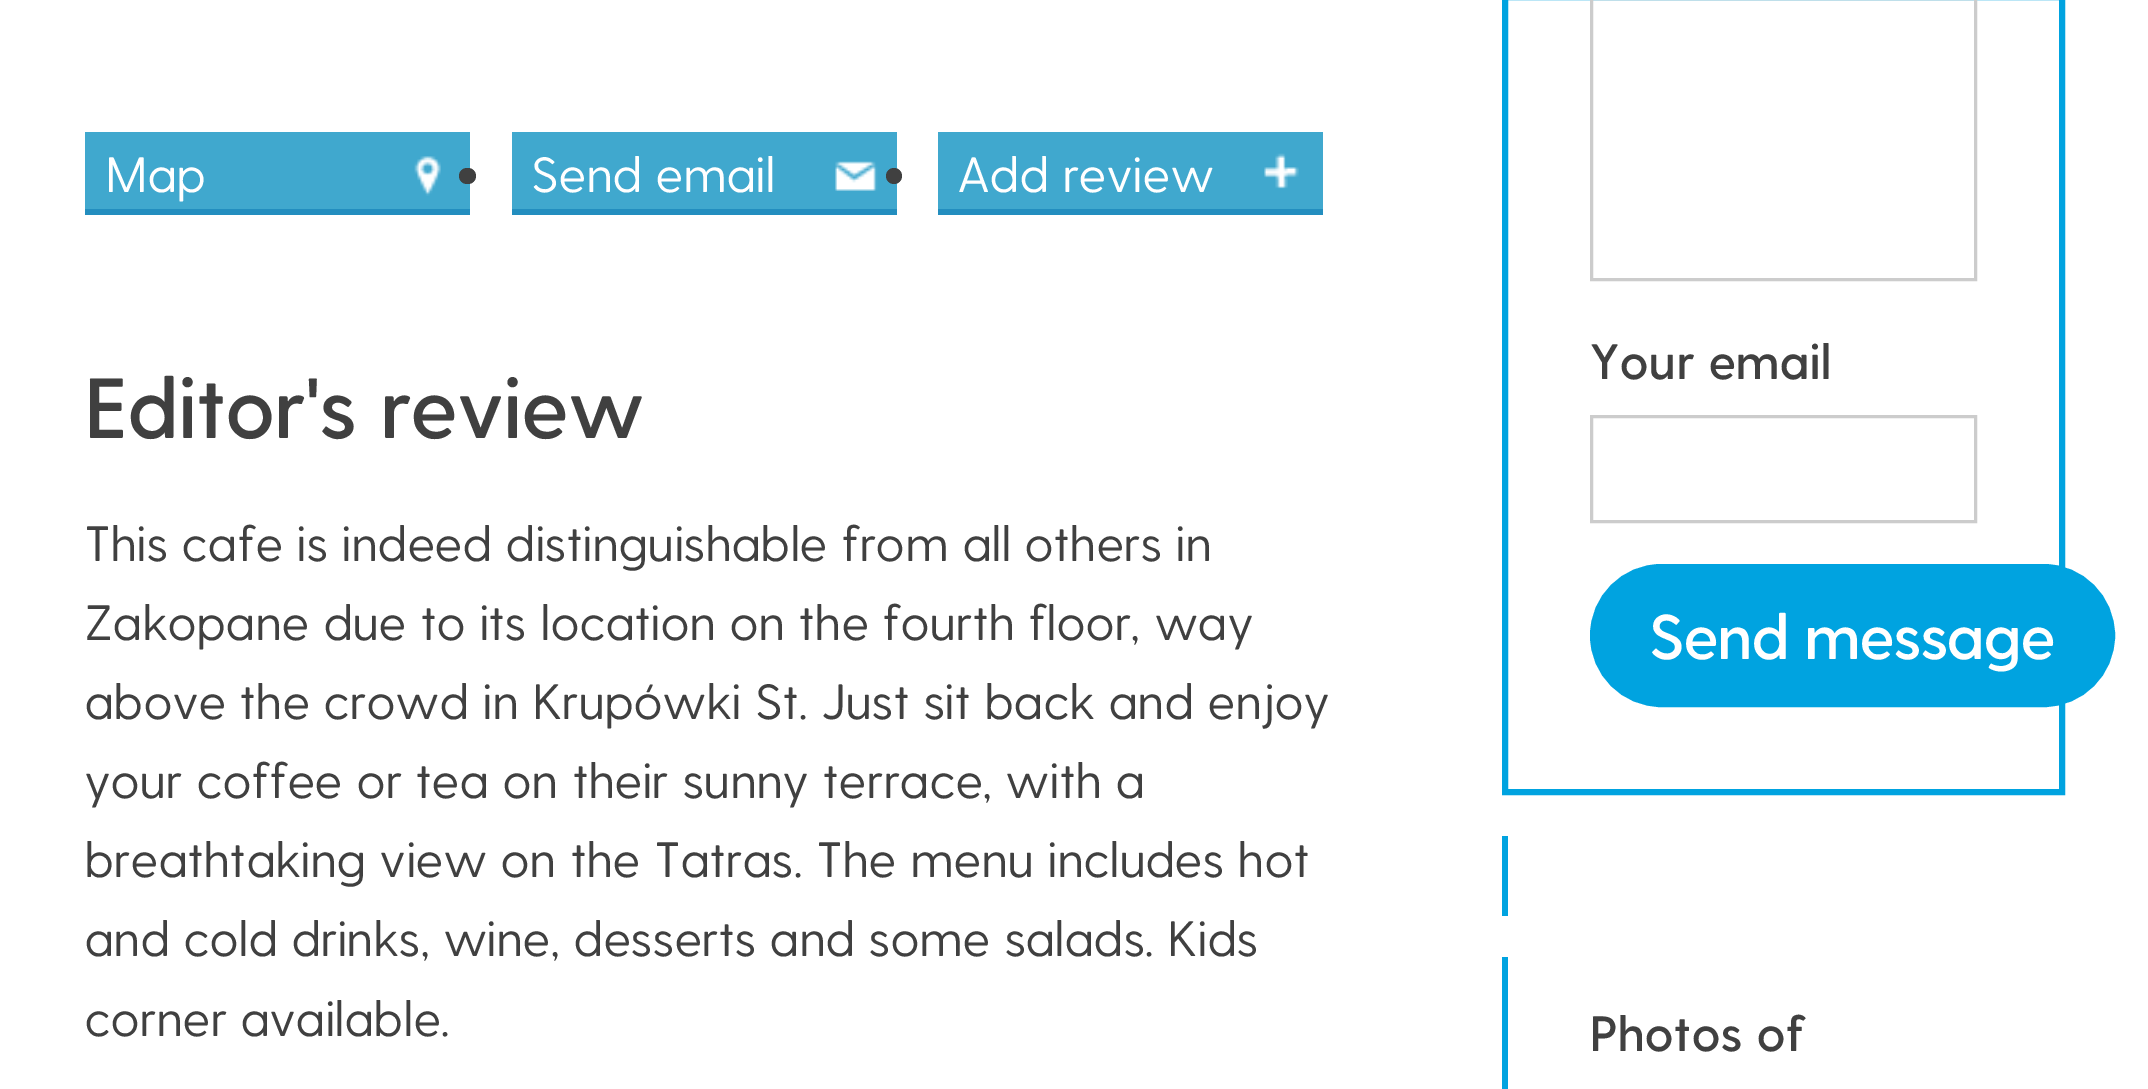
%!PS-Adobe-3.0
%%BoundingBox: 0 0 2148 1089
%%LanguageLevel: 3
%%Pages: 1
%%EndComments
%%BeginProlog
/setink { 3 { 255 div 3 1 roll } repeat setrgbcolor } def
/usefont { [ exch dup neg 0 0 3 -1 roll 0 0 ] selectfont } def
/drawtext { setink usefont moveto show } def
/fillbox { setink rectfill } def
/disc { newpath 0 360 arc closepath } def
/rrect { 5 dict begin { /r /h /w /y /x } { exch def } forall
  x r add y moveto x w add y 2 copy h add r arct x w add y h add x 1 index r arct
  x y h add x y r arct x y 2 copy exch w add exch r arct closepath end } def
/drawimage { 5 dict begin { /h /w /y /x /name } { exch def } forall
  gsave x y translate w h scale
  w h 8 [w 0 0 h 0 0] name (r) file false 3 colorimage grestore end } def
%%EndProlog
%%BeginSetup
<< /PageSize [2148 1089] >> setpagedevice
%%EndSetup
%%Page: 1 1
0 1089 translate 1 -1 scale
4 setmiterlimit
0 0 2148 1089 255 255 255 fillbox
85 132 385 77 64 168 206 fillbox
(assets/img1.rgb) 414 156 27 40 drawimage
85 209 385 6 35 142 191 fillbox
/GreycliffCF-Regular 49.5 usefont
255 255 255 setink
106 192 moveto 1 0 (Map) ashow
64 64 64 setink
459 168 17 16 8 rrect fill
512 132 385 77 64 168 206 fillbox
(assets/img2.rgb) 835 161 43 30 drawimage
512 209 385 6 35 142 191 fillbox
255 255 255 setink
532 192 moveto 1 0 (Send email) ashow
64 64 64 setink
894 176 8 disc fill
938 132 385 77 64 168 206 fillbox
(assets/img3.rgb) 1264 153 35 36 drawimage
938 209 385 6 35 142 191 fillbox
255 255 255 setink
958 192 moveto 1 0 (Add review) ashow
/GreycliffCF-SemiBold 85.25 usefont
64 64 64 setink
85 438 moveto 1 0 (Editor's review) ashow
/GreycliffCF-Regular 49.5 usefont
85 561 moveto 1 0 (This cafe is indeed distinguishable from all others in) ashow
85 640 moveto 1 0 (Zakopane due to its location on the fourth floor, way) ashow
85 719 moveto 1 0 (above the crowd in Krupówki St. Just sit back and enjoy) ashow
85 798 moveto 1 0 (your coffee or tea on their sunny terrace, with a) ashow
85 877 moveto 1 0 (breathtaking view on the Tatras. The menu includes hot) ashow
85 956 moveto 1 0 (and cold drinks, wine, desserts and some salads. Kids) ashow
85 1036 moveto 1 0 (corner available.) ashow
0 163 224 setink
6 setlinewidth
1505 -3 557 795 rectstroke
204 204 204 setink
3 setlinewidth
1591.5 -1.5 384 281 rectstroke
/GreycliffCF-SemiBold 49.5 usefont
64 64 64 setink
1590 379 moveto 1 0 (Your email) ashow
204 204 204 setink
1591.5 416.5 384 105 rectstroke
0 163 224 setink
1591.5 565.5 522 140 70 rrect gsave fill grestore
stroke
(Send message) 1650 659 /GreycliffCF-SemiBold 63.25 255 255 255 drawtext
1502 836 6 80 0 163 224 fillbox
1502 957 6 132 0 163 224 fillbox
/GreycliffCF-SemiBold 49.5 usefont
64 64 64 setink
1590 1051 moveto 1 0 (Photos of) ashow
showpage
%%EOF
